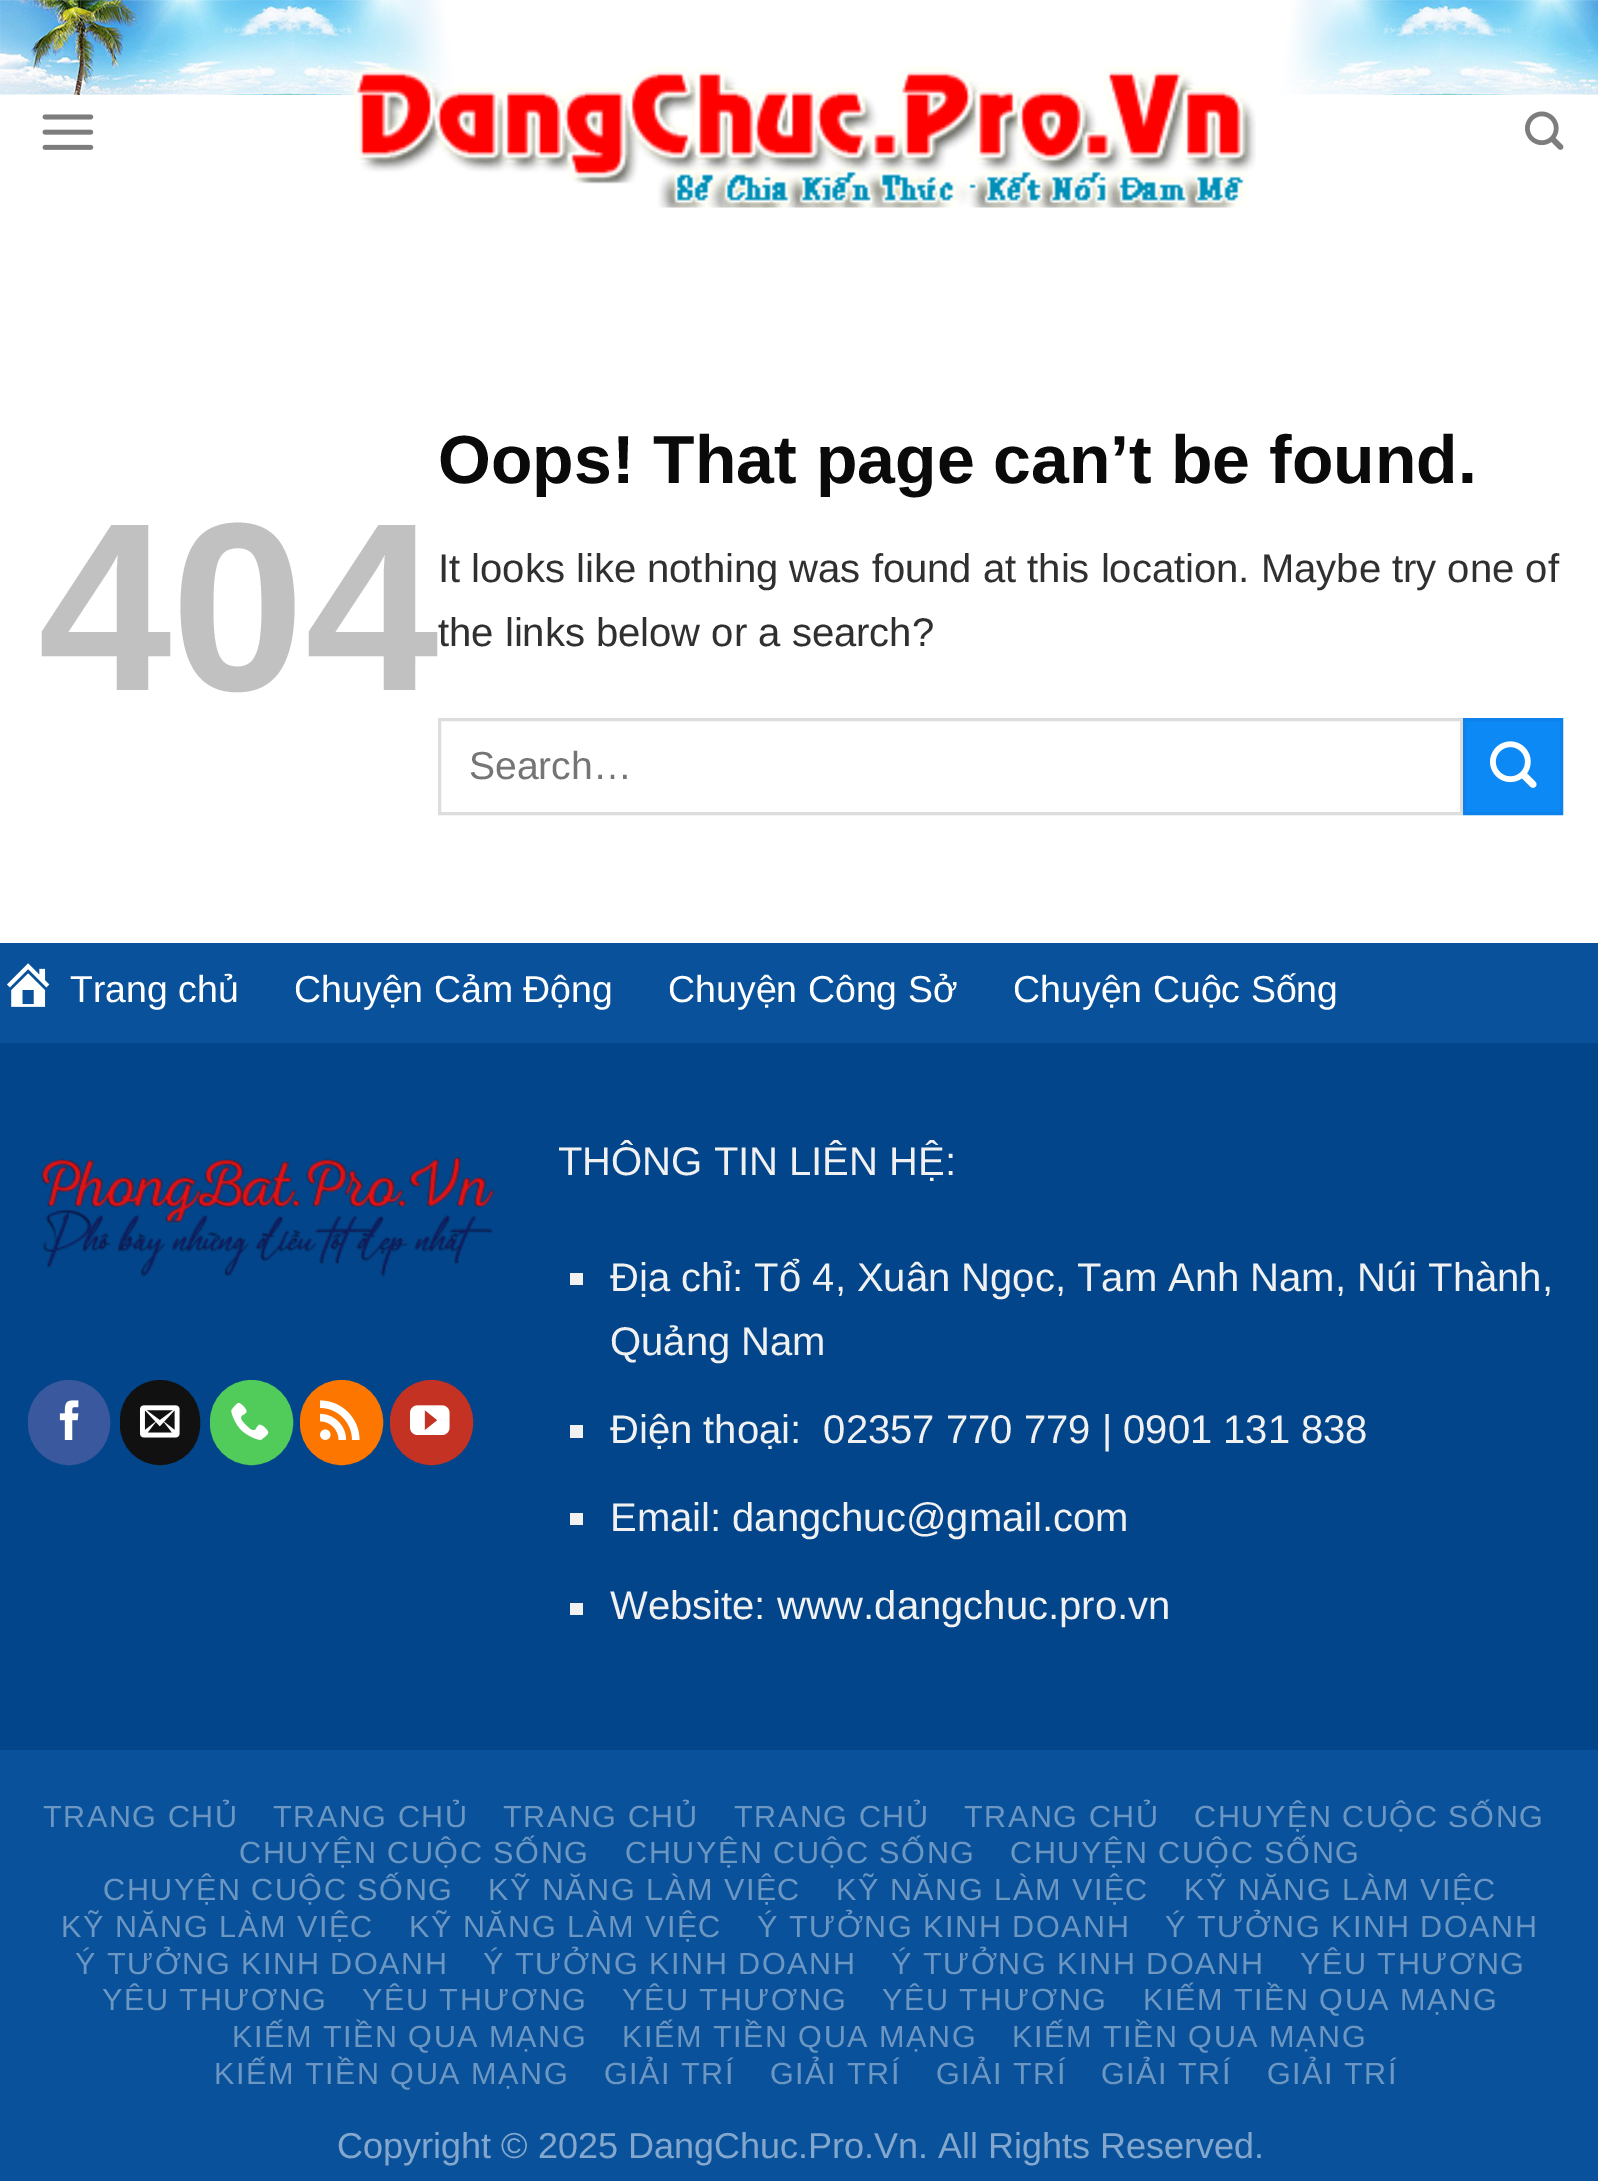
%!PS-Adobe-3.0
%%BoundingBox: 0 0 1598 2181
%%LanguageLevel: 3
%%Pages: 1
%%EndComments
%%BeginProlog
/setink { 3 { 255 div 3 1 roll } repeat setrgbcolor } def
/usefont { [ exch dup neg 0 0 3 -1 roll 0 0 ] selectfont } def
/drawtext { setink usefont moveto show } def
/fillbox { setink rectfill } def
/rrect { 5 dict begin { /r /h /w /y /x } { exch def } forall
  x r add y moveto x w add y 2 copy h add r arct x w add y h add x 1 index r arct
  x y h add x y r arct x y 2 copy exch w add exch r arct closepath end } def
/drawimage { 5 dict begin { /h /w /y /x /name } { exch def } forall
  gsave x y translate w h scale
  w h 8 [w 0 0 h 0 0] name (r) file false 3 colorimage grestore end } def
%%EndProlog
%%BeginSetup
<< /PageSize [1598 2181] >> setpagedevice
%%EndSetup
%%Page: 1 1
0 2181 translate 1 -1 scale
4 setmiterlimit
0 0 1598 2181 255 255 255 fillbox
(assets/img1.rgb) 0 0 1598 95 drawimage
(assets/img2.rgb) 42 114 52 36 drawimage
(assets/img3.rgb) 351 67 905 141 drawimage
(assets/img4.rgb) 1525 111 39 39 drawimage
(404) 38 690 /LiberationSans-Bold 240 193 193 193 drawtext
(Oops! That page can’t be found.) 438 483 /LiberationSans-Bold 68 10 10 10 drawtext
(It looks like nothing was found at this location. Maybe try one of) 438 582 /LiberationSans-Regular 40 48 48 48 drawtext
(the links below or a search?) 438 646 /LiberationSans-Regular 40 48 48 48 drawtext
221 221 221 setink
3 setlinewidth
439.5 719.5 1022 94 rectstroke
(Search…) 469 779 /LiberationSans-Regular 39 117 117 117 drawtext
13 137 246 setink
1464.5 719.5 moveto 1561.5 719.5 lineto 1561.5 813.5 lineto 1464.5 813.5 lineto closepath gsave fill grestore
12 130 234 setink
stroke
(assets/img5.rgb) 1490 741 47 47 drawimage
0 943 1598 100 9 81 154 fillbox
(assets/img6.rgb) 7 963 43 44 drawimage
(Trang chủ) 70 1002 /LiberationSans-Regular 37.5 255 255 255 drawtext
(Chuyện Cảm Động) 294 1002 /LiberationSans-Regular 37.5 255 255 255 drawtext
(Chuyện Công Sở) 668 1002 /LiberationSans-Regular 37.5 255 255 255 drawtext
(Chuyện Cuộc Sống) 1013 1002 /LiberationSans-Regular 37.5 255 255 255 drawtext
0 1043 1598 707 2 69 138 fillbox
(assets/img7.rgb) 41 1156 454 121 drawimage
58 88 157 setink
29.5 1381.5 79 82 39.5 rrect gsave fill grestore
stroke
(assets/img8.rgb) 59 1400 20 40 drawimage
17 17 17 setink
121.5 1381.5 77 82 38.5 rrect gsave fill grestore
stroke
(assets/img9.rgb) 140 1405 40 33 drawimage
81 203 90 setink
211.5 1381.5 80 82 40 rrect gsave fill grestore
stroke
(assets/img10.rgb) 231 1402 38 38 drawimage
252 118 0 setink
301.5 1381.5 80 82 40 rrect gsave fill grestore
stroke
(assets/img11.rgb) 320 1400 40 40 drawimage
195 50 35 setink
391.5 1381.5 80 82 40 rrect gsave fill grestore
stroke
(assets/img12.rgb) 410 1405 40 30 drawimage
(THÔNG TIN LIÊN HỆ:) 558 1175 /LiberationSans-Regular 40 241 241 241 drawtext
570 1273 13 12 241 241 241 fillbox
(Địa chỉ: Tổ 4, Xuân Ngọc, Tam Anh Nam, Núi Thành,) 610 1291 /LiberationSans-Regular 40 241 241 241 drawtext
(Quảng Nam) 610 1355 /LiberationSans-Regular 40 241 241 241 drawtext
570 1425 13 13 241 241 241 fillbox
(Điện thoại:  02357 770 779 | 0901 131 838) 610 1443 /LiberationSans-Regular 40 241 241 241 drawtext
570 1513 13 12 241 241 241 fillbox
(Email: dangchuc@gmail.com) 610 1531 /LiberationSans-Regular 40 241 241 241 drawtext
570 1603 13 12 241 241 241 fillbox
(Website: www.dangchuc.pro.vn) 610 1619 /LiberationSans-Regular 40 241 241 241 drawtext
0 1750 1598 431 9 81 154 fillbox
/LiberationSans-Regular 30.6 usefont
108 151 195 setink
43 1827 moveto 1.5 0 (TRANG CHỦ) ashow
273 1827 moveto 1.5 0 (TRANG CHỦ) ashow
503 1827 moveto 1.5 0 (TRANG CHỦ) ashow
734 1827 moveto 1.5 0 (TRANG CHỦ) ashow
964 1827 moveto 1.5 0 (TRANG CHỦ) ashow
1194 1827 moveto 1.5 0 (CHUYỆN CUỘC SỐNG) ashow
239 1863 moveto 1.5 0 (CHUYỆN CUỘC SỐNG) ashow
625 1863 moveto 1.5 0 (CHUYỆN CUỘC SỐNG) ashow
1010 1863 moveto 1.5 0 (CHUYỆN CUỘC SỐNG) ashow
103 1900 moveto 1.5 0 (CHUYỆN CUỘC SỐNG) ashow
488 1900 moveto 1.5 0 (KỸ NĂNG LÀM VIỆC) ashow
836 1900 moveto 1.5 0 (KỸ NĂNG LÀM VIỆC) ashow
1184 1900 moveto 1.5 0 (KỸ NĂNG LÀM VIỆC) ashow
61 1937 moveto 1.5 0 (KỸ NĂNG LÀM VIỆC) ashow
409 1937 moveto 1.5 0 (KỸ NĂNG LÀM VIỆC) ashow
757 1937 moveto 1.5 0 (Ý TƯỞNG KINH DOANH) ashow
1165 1937 moveto 1.5 0 (Ý TƯỞNG KINH DOANH) ashow
75 1974 moveto 1.5 0 (Ý TƯỞNG KINH DOANH) ashow
483 1974 moveto 1.5 0 (Ý TƯỞNG KINH DOANH) ashow
891 1974 moveto 1.5 0 (Ý TƯỞNG KINH DOANH) ashow
1300 1974 moveto 1.5 0 (YÊU THƯƠNG) ashow
102 2010 moveto 1.5 0 (YÊU THƯƠNG) ashow
362 2010 moveto 1.5 0 (YÊU THƯƠNG) ashow
622 2010 moveto 1.5 0 (YÊU THƯƠNG) ashow
882 2010 moveto 1.5 0 (YÊU THƯƠNG) ashow
1143 2010 moveto 1.5 0 (KIẾM TIỀN QUA MẠNG) ashow
232 2047 moveto 1.5 0 (KIẾM TIỀN QUA MẠNG) ashow
622 2047 moveto 1.5 0 (KIẾM TIỀN QUA MẠNG) ashow
1012 2047 moveto 1.5 0 (KIẾM TIỀN QUA MẠNG) ashow
214 2084 moveto 1.5 0 (KIẾM TIỀN QUA MẠNG) ashow
604 2084 moveto 1.5 0 (GIẢI TRÍ) ashow
770 2084 moveto 1.5 0 (GIẢI TRÍ) ashow
936 2084 moveto 1.5 0 (GIẢI TRÍ) ashow
1101 2084 moveto 1.5 0 (GIẢI TRÍ) ashow
1267 2084 moveto 1.5 0 (GIẢI TRÍ) ashow
(Copyright © 2025 DangChuc.Pro.Vn. All Rights Reserved.) 337 2158 /LiberationSans-Regular 36 132 168 205 drawtext
showpage
%%EOF
